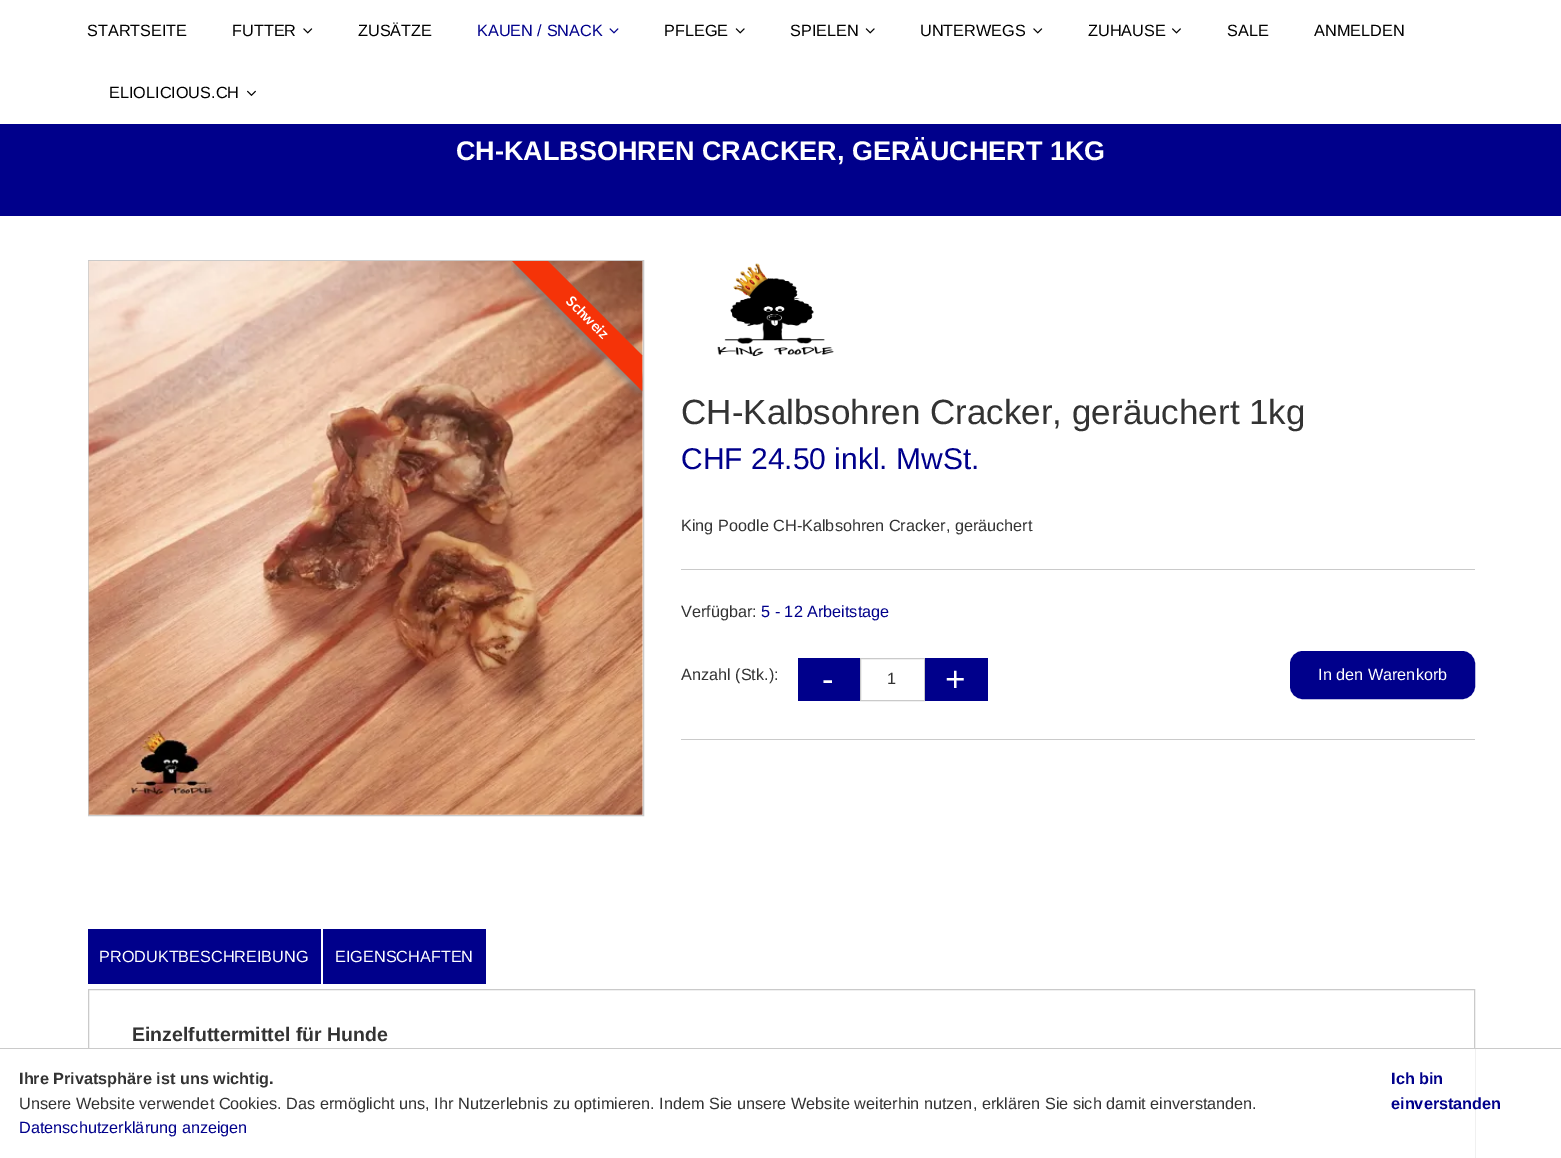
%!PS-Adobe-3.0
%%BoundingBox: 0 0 1561 1158
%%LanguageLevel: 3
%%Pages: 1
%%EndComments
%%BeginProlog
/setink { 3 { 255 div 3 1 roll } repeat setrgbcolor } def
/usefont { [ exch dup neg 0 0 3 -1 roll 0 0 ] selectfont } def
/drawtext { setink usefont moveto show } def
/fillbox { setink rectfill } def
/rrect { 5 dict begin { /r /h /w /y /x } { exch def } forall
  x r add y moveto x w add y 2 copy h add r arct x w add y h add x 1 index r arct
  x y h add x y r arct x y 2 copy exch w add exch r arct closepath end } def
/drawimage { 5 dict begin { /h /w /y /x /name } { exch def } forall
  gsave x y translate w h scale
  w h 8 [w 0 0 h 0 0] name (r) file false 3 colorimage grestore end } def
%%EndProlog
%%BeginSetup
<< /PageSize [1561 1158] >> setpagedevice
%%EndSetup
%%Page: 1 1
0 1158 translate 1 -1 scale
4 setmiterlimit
0 0 1561 1158 255 255 255 fillbox
(STARTSEITE) 87 36 /LiberationSans-Regular 16.25 0 0 0 drawtext
(FUTTER) 232 36 /LiberationSans-Regular 16.25 0 0 0 drawtext
(assets/img1.rgb) 303 28 10 6 drawimage
(ZUSÄTZE) 358 36 /LiberationSans-Regular 16.25 0 0 0 drawtext
(KAUEN / SNACK) 477 36 /LiberationSans-Regular 16.25 0 0 139 drawtext
(assets/img2.rgb) 609 28 10 6 drawimage
(PFLEGE) 664 36 /LiberationSans-Regular 16.25 0 0 0 drawtext
(assets/img3.rgb) 735 28 10 6 drawimage
(SPIELEN) 790 36 /LiberationSans-Regular 16.25 0 0 0 drawtext
(assets/img3.rgb) 865 28 10 6 drawimage
(UNTERWEGS) 920 36 /LiberationSans-Regular 16.25 0 0 0 drawtext
(assets/img1.rgb) 1033 28 10 6 drawimage
(ZUHAUSE) 1088 36 /LiberationSans-Regular 16.25 0 0 0 drawtext
(assets/img4.rgb) 1172 28 9 6 drawimage
(SALE) 1227 36 /LiberationSans-Regular 16.25 0 0 0 drawtext
(ANMELDEN) 1314 36 /LiberationSans-Regular 16.25 0 0 0 drawtext
(ELIOLICIOUS.CH) 109 98 /LiberationSans-Regular 16.25 0 0 0 drawtext
(assets/img5.rgb) 247 90 9 6 drawimage
0 124 1561 92 0 0 139 fillbox
(CH-KALBSOHREN CRACKER, GERÄUCHERT 1KG) 456 160 /LiberationSans-Bold 27 255 255 255 drawtext
202 202 202 setink
88.5 260.5 555 555 rectstroke
(assets/img6.rgb) 88 261 555 554 drawimage
(assets/img7.rgb) 511 261 132 136 drawimage
/Lato-Bold 14.5 usefont
255 255 255 setink
gsave 565 302 translate 45 rotate 0 0 moveto (Schweiz) show grestore
(assets/img8.rgb) 717 263 117 94 drawimage
(CH-Kalbsohren Cracker, geräuchert 1kg) 681 424 /LiberationSans-Regular 35 51 51 51 drawtext
(CHF 24.50 inkl. MwSt.) 681 469 /LiberationSans-Regular 30 0 0 139 drawtext
(King Poodle CH-Kalbsohren Cracker, geräuchert) 681 531 /LiberationSans-Regular 16.25 51 51 51 drawtext
681 569 794 1 202 202 202 fillbox
(Verfügbar:) 681 617 /LiberationSans-Regular 16.25 51 51 51 drawtext
(5 - 12 Arbeitstage) 761 617 /LiberationSans-Regular 16.25 0 0 139 drawtext
681 739 794 1 202 202 202 fillbox
(Anzahl \(Stk.\):) 681 680 /LiberationSans-Regular 16.25 51 51 51 drawtext
798 658 62 43 0 0 139 fillbox
(-) 822 691 /LiberationSans-Regular 35 255 255 255 drawtext
202 202 202 setink
860.5 658.5 64 42 rectstroke
(1) 887 684 /LiberationSans-Regular 16.25 51 51 51 drawtext
925 658 63 43 0 0 139 fillbox
(+) 945 691 /LiberationSans-Regular 35 255 255 255 drawtext
0 0 139 setink
1291.5 652.5 182 45 11.5 rrect gsave fill grestore
3 setlinewidth
stroke
(In den Warenkorb) 1318 680 /LiberationSans-Regular 16.25 255 255 255 drawtext
88 929 233 55 0 0 139 fillbox
(PRODUKTBESCHREIBUNG) 99 962 /LiberationSans-Regular 16.25 255 255 255 drawtext
323 929 163 55 0 0 139 fillbox
(EIGENSCHAFTEN) 335 962 /LiberationSans-Regular 16.25 255 255 255 drawtext
202 202 202 setink
1 setlinewidth
88.5 989.5 1386 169 rectstroke
(Einzelfuttermittel für Hunde) 132 1041 /LiberationSans-Bold 19.5 51 51 51 drawtext
88 1049 1387 109 255 255 255 fillbox
0 1048 1561 1 202 202 202 fillbox
(Ihre Privatsphäre ist uns wichtig.) 19 1084 /LiberationSans-Bold 16.25 51 51 51 drawtext
(Unsere Website verwendet Cookies. Das ermöglicht uns, Ihr Nutzerlebnis zu optimieren. Indem Sie unsere Website weiterhin nutzen, erklären Sie sich damit einverstanden.) 19 1109 /LiberationSans-Regular 16.25 51 51 51 drawtext
(Datenschutzerklärung anzeigen) 19 1133 /LiberationSans-Regular 16.25 0 0 139 drawtext
(Ich bin) 1391 1084 /LiberationSans-Bold 16.25 0 0 139 drawtext
(einverstanden) 1391 1109 /LiberationSans-Bold 16.25 0 0 139 drawtext
showpage
%%EOF
